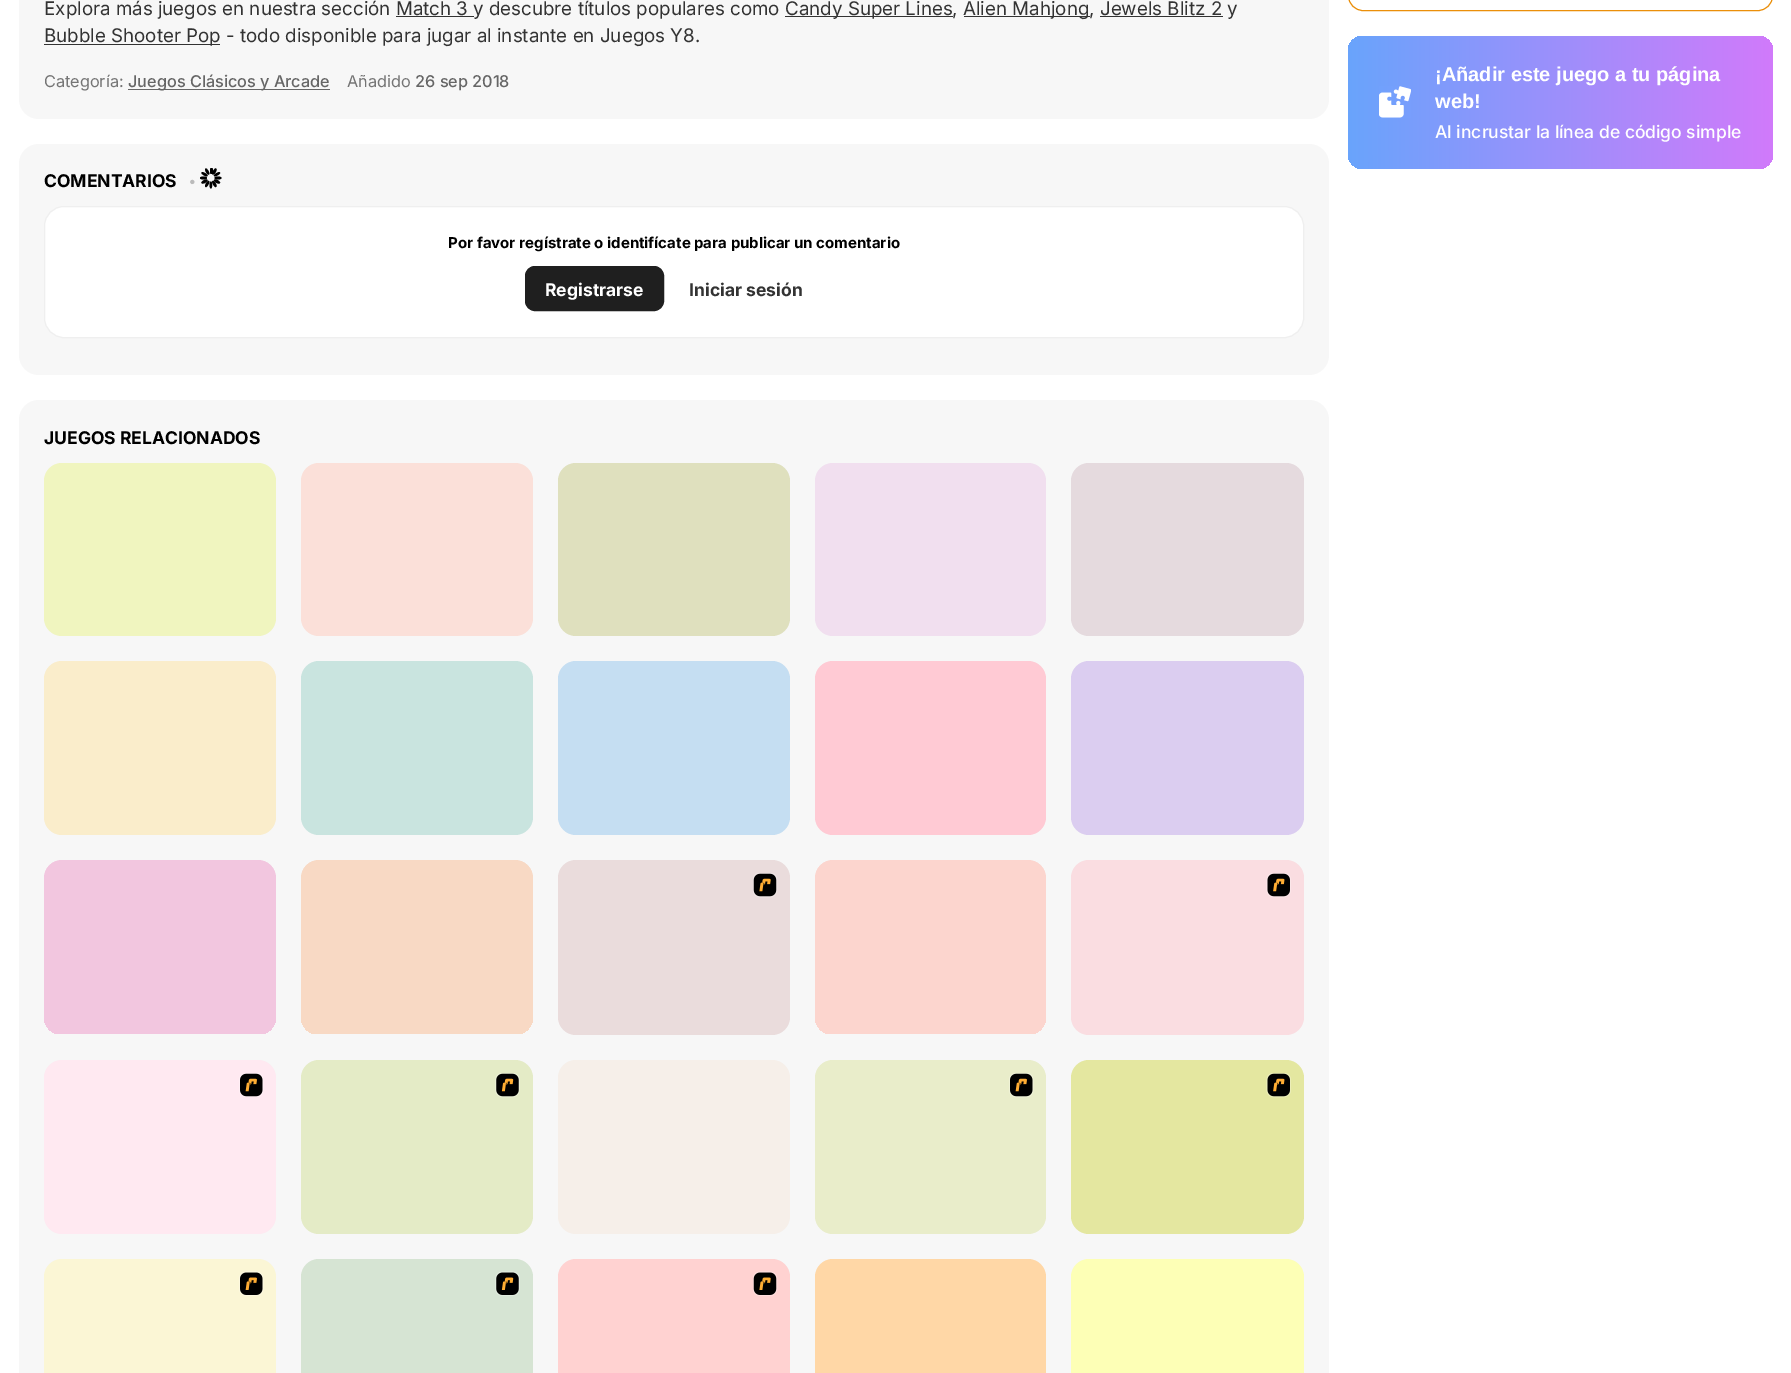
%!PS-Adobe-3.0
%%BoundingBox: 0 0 1791 1373
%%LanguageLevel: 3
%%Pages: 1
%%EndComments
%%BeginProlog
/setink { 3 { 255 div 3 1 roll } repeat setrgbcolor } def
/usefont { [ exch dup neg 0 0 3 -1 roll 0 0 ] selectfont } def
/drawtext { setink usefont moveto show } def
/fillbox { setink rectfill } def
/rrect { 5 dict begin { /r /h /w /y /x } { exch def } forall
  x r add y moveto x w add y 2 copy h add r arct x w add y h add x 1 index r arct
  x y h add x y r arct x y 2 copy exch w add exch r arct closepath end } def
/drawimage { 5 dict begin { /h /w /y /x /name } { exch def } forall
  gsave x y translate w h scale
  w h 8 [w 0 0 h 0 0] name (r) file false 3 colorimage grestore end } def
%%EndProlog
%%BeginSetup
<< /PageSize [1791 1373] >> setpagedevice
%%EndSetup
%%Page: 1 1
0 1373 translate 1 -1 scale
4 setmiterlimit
0 0 1791 1373 255 255 255 fillbox
247 247 247 setink
19 -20 1310 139 20 rrect fill
(Explora más juegos en nuestra sección Match 3) 44 15 /Inter-Regular 18.75 51 51 51 drawtext
396 16 78 1 51 51 51 fillbox
(y descubre títulos populares como) 473 15 /Inter-Regular 18.75 51 51 51 drawtext
785 16 168 1 51 51 51 fillbox
(Candy Super Lines,) 785 15 /Inter-Regular 18.75 51 51 51 drawtext
964 16 126 1 51 51 51 fillbox
(Alien Mahjong, Jewels Blitz 2 y) 963 15 /Inter-Regular 18.75 51 51 51 drawtext
1100 16 123 1 51 51 51 fillbox
44 44 176 1 51 51 51 fillbox
(Bubble Shooter Pop - todo disponible para jugar al instante en Juegos Y8.) 44 42 /Inter-Regular 18.75 51 51 51 drawtext
(Categoría:) 44 87 /Inter-Regular 16.25 117 117 117 drawtext
128 89 202 1 102 102 102 fillbox
(Juegos Clásicos y Arcade) 128 87 /Inter-Medium 16.25 102 102 102 drawtext
(Añadido) 347 87 /Inter-Regular 16.25 117 117 117 drawtext
(26 sep 2018) 415 87 /Inter-Medium 16.25 102 102 102 drawtext
247 247 247 setink
19 144 1310 231 20 rrect fill
(COMENTARIOS) 44 187 /Inter-Bold 17.5 0 0 0 drawtext
(•) 189 186 /Inter-Bold 14 187 187 187 drawtext
0 0 0 setink
210 168 3 6 1.5 rrect fill
216 168.5 moveto 218 169.5 214.5 175.5 212.5 174.5 curveto 211 173.5 214.5 167.5 216 168.5 curveto closepath fill
220 172.5 moveto 221 174 215 177.5 214 176 curveto 213 174.5 219 171 220 172.5 curveto closepath fill
221.5 178 moveto 221.5 180 214.5 180 214.5 178 curveto 214.5 176 221.5 176 221.5 178 curveto closepath fill
220 183 moveto 219 185 213 181.5 214 180 curveto 215 178 221 181.5 220 183 curveto closepath fill
216 187 moveto 214.5 188 211 182 212.5 181 curveto 214.5 180 218 186 216 187 curveto closepath fill
211 188.5 moveto 209 188.5 209 181.5 211 181.5 curveto 212.5 181.5 212.5 188.5 211 188.5 curveto closepath fill
205.5 187 moveto 204 186 207 180 209 181 curveto 210.5 182 207 188 205.5 187 curveto closepath fill
201.5 183 moveto 200.5 181.5 206.5 178 207.5 180 curveto 208.5 181.5 202.5 185 201.5 183 curveto closepath fill
200 178 moveto 200 176 207 176 207 178 curveto 207 180 200 180 200 178 curveto closepath fill
201.5 172.5 moveto 202.5 171 208.5 174.5 207.5 176 curveto 206.5 177.5 200.5 174 201.5 172.5 curveto closepath fill
205.5 168.5 moveto 207 167.5 210.5 173.5 209 174.5 curveto 207 175.5 204 169.5 205.5 168.5 curveto closepath fill
255 255 255 setink
44.5 206.5 1259 131 19.5 rrect gsave fill grestore
239 239 239 setink
stroke
(Por favor regístrate o identifícate para publicar un comentario) 448 248 /Inter-Bold 15 0 0 0 drawtext
31 31 31 setink
525.5 266.5 138 44 9.5 rrect gsave fill grestore
stroke
(Registrarse) 545 296 /Inter-Bold 17.5 255 255 255 drawtext
(Iniciar sesión) 689 296 /Inter-Bold 17.5 51 51 51 drawtext
247 247 247 setink
19 400 1310 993 20 rrect fill
(JUEGOS RELACIONADOS) 44 444 /Inter-Bold 17.5 0 0 0 drawtext
240 245 191 setink
44 463 232 173 18 rrect fill
251 224 217 setink
301 463 232 173 18 rrect fill
223 224 190 setink
558 463 232 173 18 rrect fill
241 223 239 setink
815 463 231 173 18 rrect fill
229 218 222 setink
1071 463 233 173 18 rrect fill
250 237 203 setink
44 661 232 174 18 rrect fill
201 228 223 setink
301 661 232 174 18 rrect fill
197 222 242 setink
558 661 232 174 18 rrect fill
255 202 212 setink
815 661 231 174 18 rrect fill
219 205 240 setink
1071 661 233 174 18 rrect fill
gsave
44 860 232 175 18 rrect clip newpath
242 198 223 setink
62 860 moveto 258 860 lineto 268 860 276 868 276 878 curveto 276 1034 lineto 44 1034 lineto 44 878 lineto 44 868 52 860 62 860 curveto closepath fill
grestore
gsave
301 860 232 175 18 rrect clip newpath
248 217 196 setink
319 860 moveto 515 860 lineto 525 860 533 868 533 878 curveto 533 1034 lineto 301 1034 lineto 301 878 lineto 301 868 309 860 319 860 curveto closepath fill
grestore
234 220 220 setink
558 860 232 175 18 rrect fill
(assets/img1.rgb) 753 873 25 25 drawimage
gsave
815 860 231 175 18 rrect clip newpath
252 213 206 setink
833 860 moveto 1028 860 lineto 1038 860 1046 868 1046 878 curveto 1046 1034 lineto 815 1034 lineto 815 878 lineto 815 868 823 860 833 860 curveto closepath fill
grestore
250 221 225 setink
1071 860 233 175 18 rrect fill
(assets/img2.rgb) 1266 873 25 25 drawimage
255 233 241 setink
44 1060 232 174 18 rrect fill
(assets/img3.rgb) 239 1073 25 24 drawimage
228 235 198 setink
301 1060 232 174 18 rrect fill
(assets/img4.rgb) 495 1073 25 25 drawimage
246 239 233 setink
558 1060 232 174 18 rrect fill
233 237 202 setink
815 1060 231 174 18 rrect fill
(assets/img5.rgb) 1009 1073 25 25 drawimage
228 231 160 setink
1071 1060 233 174 18 rrect fill
(assets/img6.rgb) 1266 1073 25 25 drawimage
251 246 213 setink
44 1259 232 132 18 rrect fill
(assets/img7.rgb) 239 1271 25 25 drawimage
214 228 211 setink
301 1259 232 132 18 rrect fill
(assets/img8.rgb) 495 1271 25 25 drawimage
255 210 209 setink
558 1259 232 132 18 rrect fill
(assets/img9.rgb) 753 1271 25 25 drawimage
255 215 166 setink
815 1259 231 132 18 rrect fill
253 255 182 setink
1071 1259 233 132 18 rrect fill
235 143 10 setink
1348.5 -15.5 424 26 14.5 rrect stroke
gsave 1348 36 425 133 15 rrect clip newpath
<< /ShadingType 2 /ColorSpace /DeviceRGB /Coords [1348 103 1773 102] /Extend [true true] /Function << /FunctionType 2 /Domain [0 1] /C0 [0.412 0.643 0.988] /C1 [0.82 0.478 0.98] /N 1 >> >> shfill grestore
(assets/img10.rgb) 1379 86 32 32 drawimage
(¡Añadir este juego a tu página) 1435 81 /LiberationSans-Bold 20 255 255 255 drawtext
(web!) 1435 108 /LiberationSans-Bold 20 255 255 255 drawtext
(Al incrustar la línea de código simple) 1435 138 /Inter-Medium 17.5 255 255 255 drawtext
showpage
%%EOF
